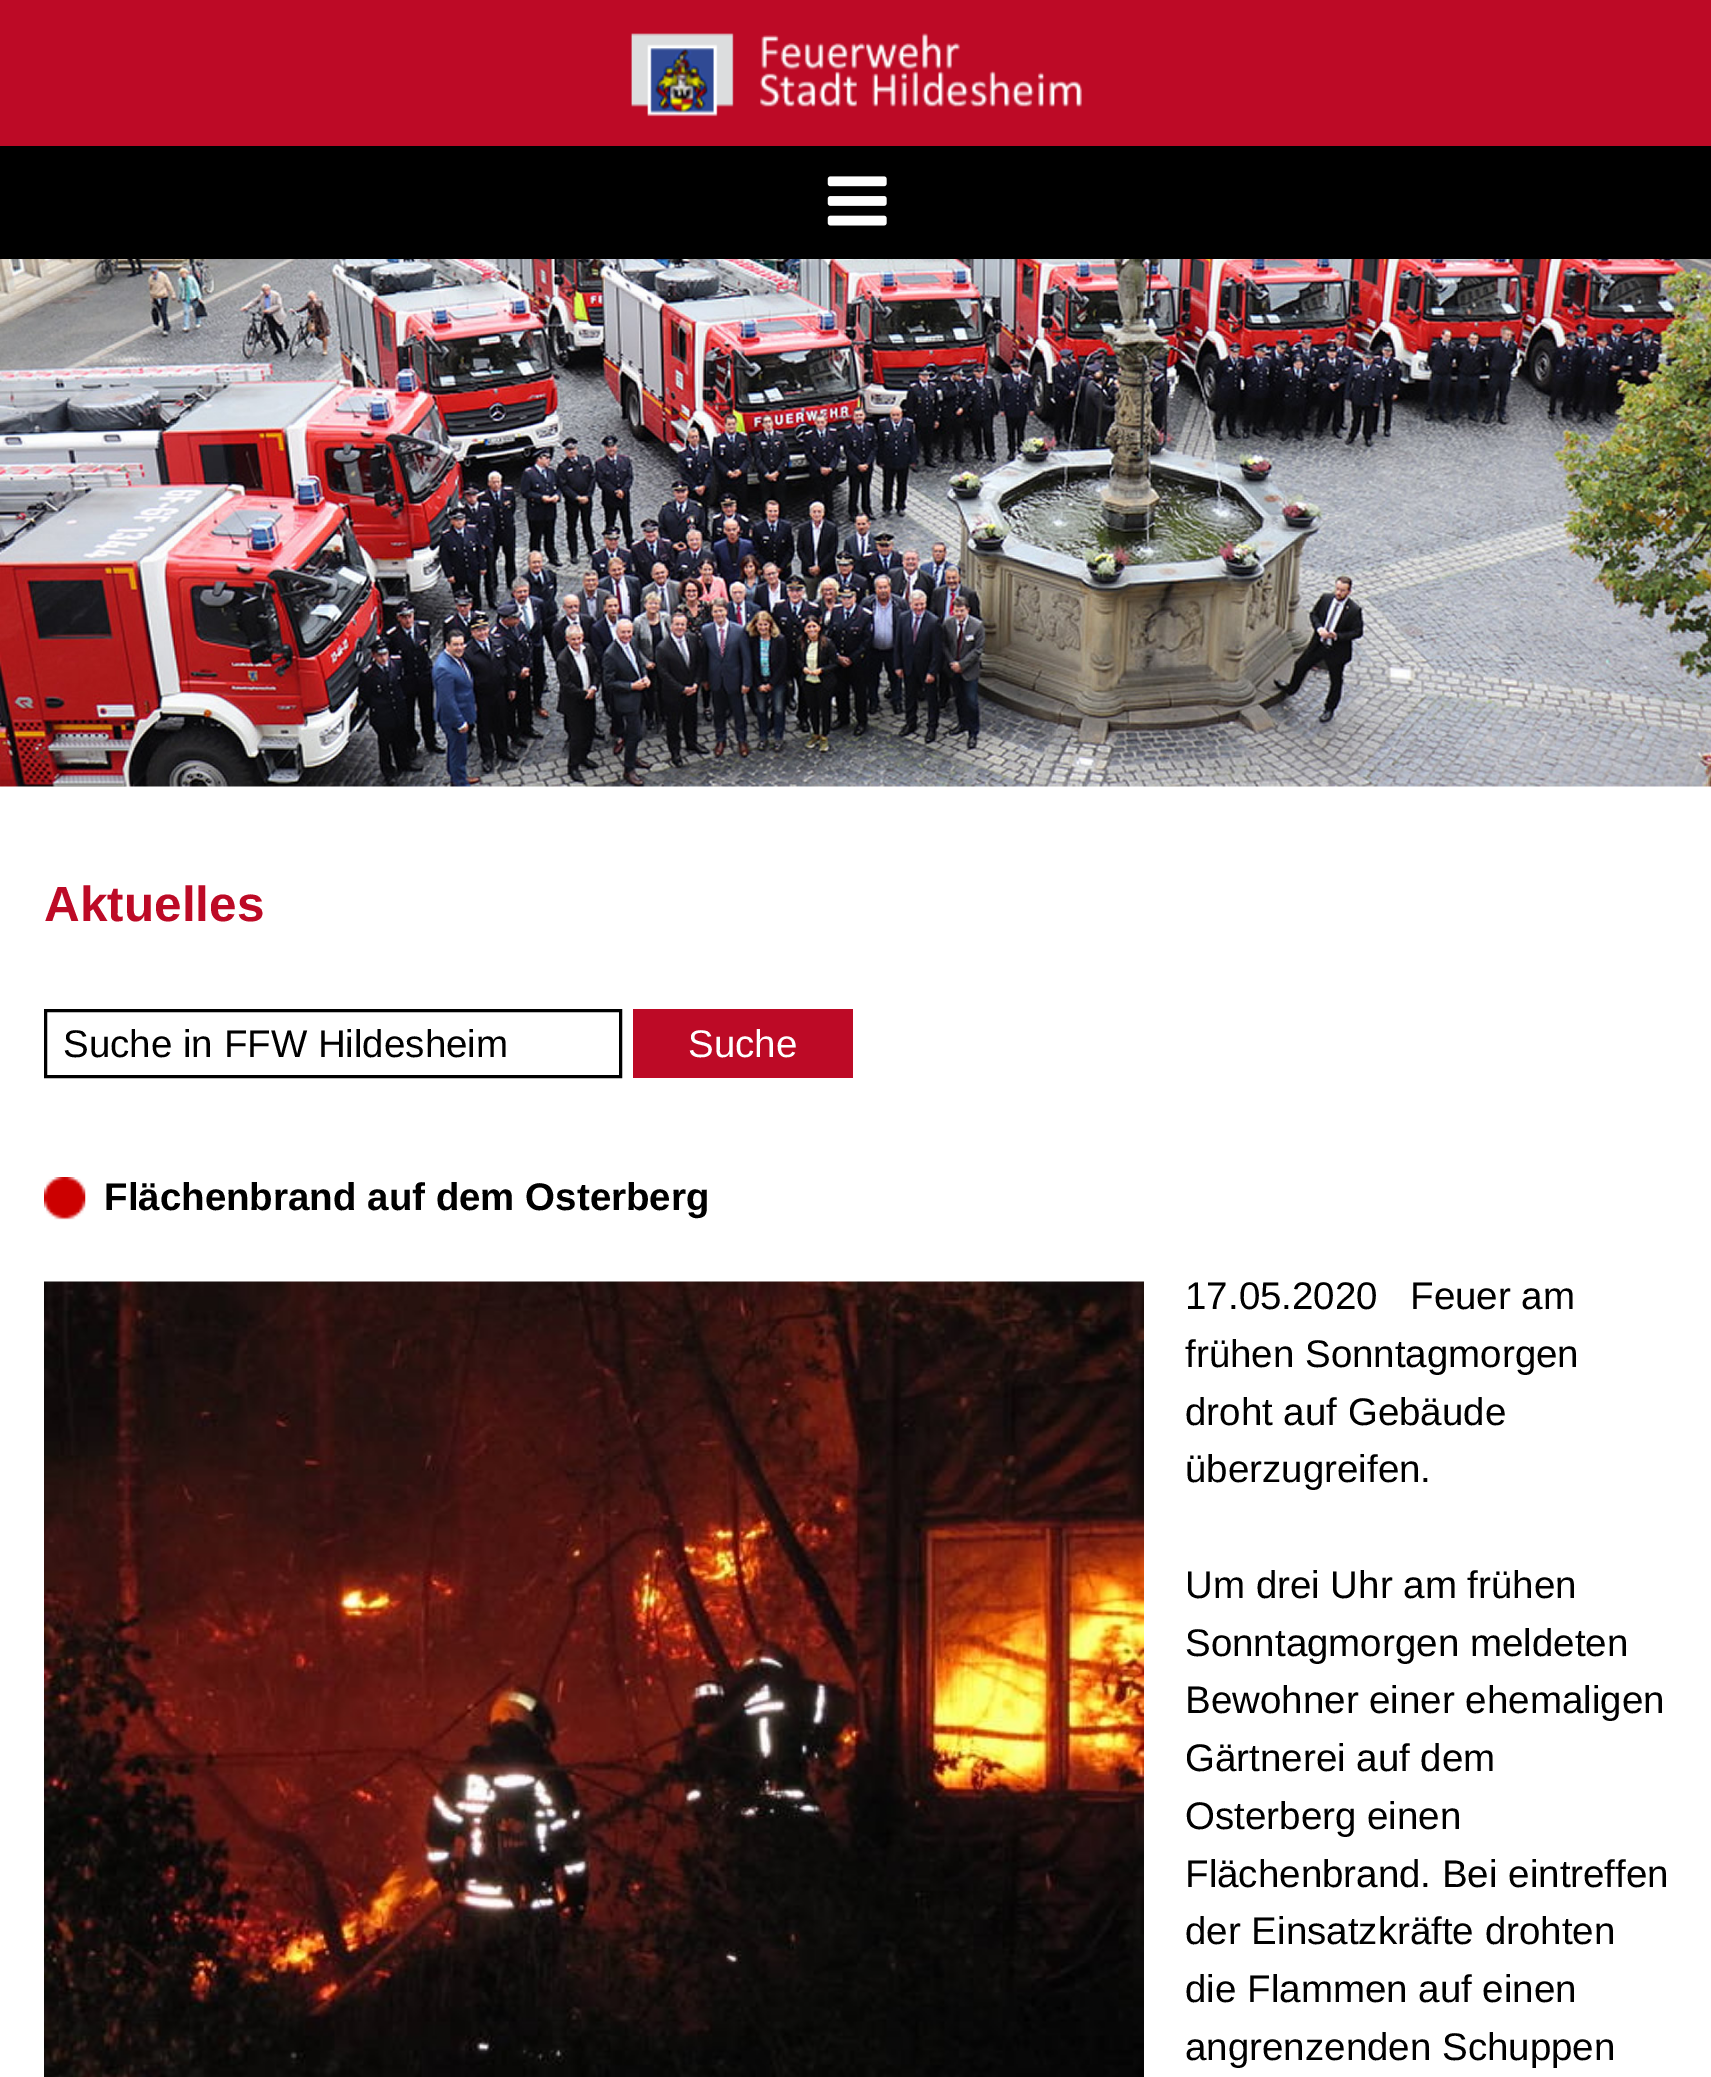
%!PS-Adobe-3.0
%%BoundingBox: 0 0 1711 2077
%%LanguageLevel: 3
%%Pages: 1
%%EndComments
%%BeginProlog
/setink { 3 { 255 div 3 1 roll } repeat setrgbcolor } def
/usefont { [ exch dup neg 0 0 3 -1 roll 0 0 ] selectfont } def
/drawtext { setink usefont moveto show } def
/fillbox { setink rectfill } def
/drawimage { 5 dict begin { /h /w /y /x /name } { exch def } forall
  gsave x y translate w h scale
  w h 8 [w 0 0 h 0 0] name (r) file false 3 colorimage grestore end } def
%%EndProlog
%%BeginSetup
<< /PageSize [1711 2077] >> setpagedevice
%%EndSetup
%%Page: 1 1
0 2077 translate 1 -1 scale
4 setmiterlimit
0 0 1711 2077 255 255 255 fillbox
0 0 1711 146 189 10 38 fillbox
(assets/img1.rgb) 631 33 451 84 drawimage
0 146 1711 113 0 0 0 fillbox
(assets/img2.rgb) 827 176 60 50 drawimage
(assets/img3.rgb) 0 259 1711 528 drawimage
(Aktuelles) 44 921 /LiberationSans-Bold 49.5 189 10 38 drawtext
0 0 0 setink
3 setlinewidth
45.5 1010.5 575 66 rectstroke
(Suche in FFW Hildesheim) 63 1057 /LiberationSans-Regular 38.5 0 0 0 drawtext
633 1009 220 69 189 10 38 fillbox
(Suche) 688 1057 /LiberationSans-Regular 38.5 255 255 255 drawtext
(assets/img4.rgb) 44 1177 42 43 drawimage
(Flächenbrand auf dem Osterberg) 104 1210 /LiberationSans-Bold 38.5 0 0 0 drawtext
(assets/img5.rgb) 44 1281 1100 796 drawimage
(17.05.2020) 1185 1309 /LiberationSans-Regular 38.5 0 0 0 drawtext
(Feuer am) 1410 1309 /LiberationSans-Regular 38.5 0 0 0 drawtext
(frühen Sonntagmorgen) 1185 1367 /LiberationSans-Regular 38.5 0 0 0 drawtext
(droht auf Gebäude) 1185 1425 /LiberationSans-Regular 38.5 0 0 0 drawtext
(überzugreifen.) 1185 1482 /LiberationSans-Regular 38.5 0 0 0 drawtext
(Um drei Uhr am frühen) 1185 1598 /LiberationSans-Regular 38.5 0 0 0 drawtext
(Sonntagmorgen meldeten) 1185 1656 /LiberationSans-Regular 38.5 0 0 0 drawtext
(Bewohner einer ehemaligen) 1185 1713 /LiberationSans-Regular 38.5 0 0 0 drawtext
(Gärtnerei auf dem) 1185 1771 /LiberationSans-Regular 38.5 0 0 0 drawtext
(Osterberg einen) 1185 1829 /LiberationSans-Regular 38.5 0 0 0 drawtext
(Flächenbrand. Bei eintreffen) 1185 1887 /LiberationSans-Regular 38.5 0 0 0 drawtext
(der Einsatzkräfte drohten) 1185 1944 /LiberationSans-Regular 38.5 0 0 0 drawtext
(die Flammen auf einen) 1185 2002 /LiberationSans-Regular 38.5 0 0 0 drawtext
(angrenzenden Schuppen) 1185 2060 /LiberationSans-Regular 38.5 0 0 0 drawtext
showpage
%%EOF
